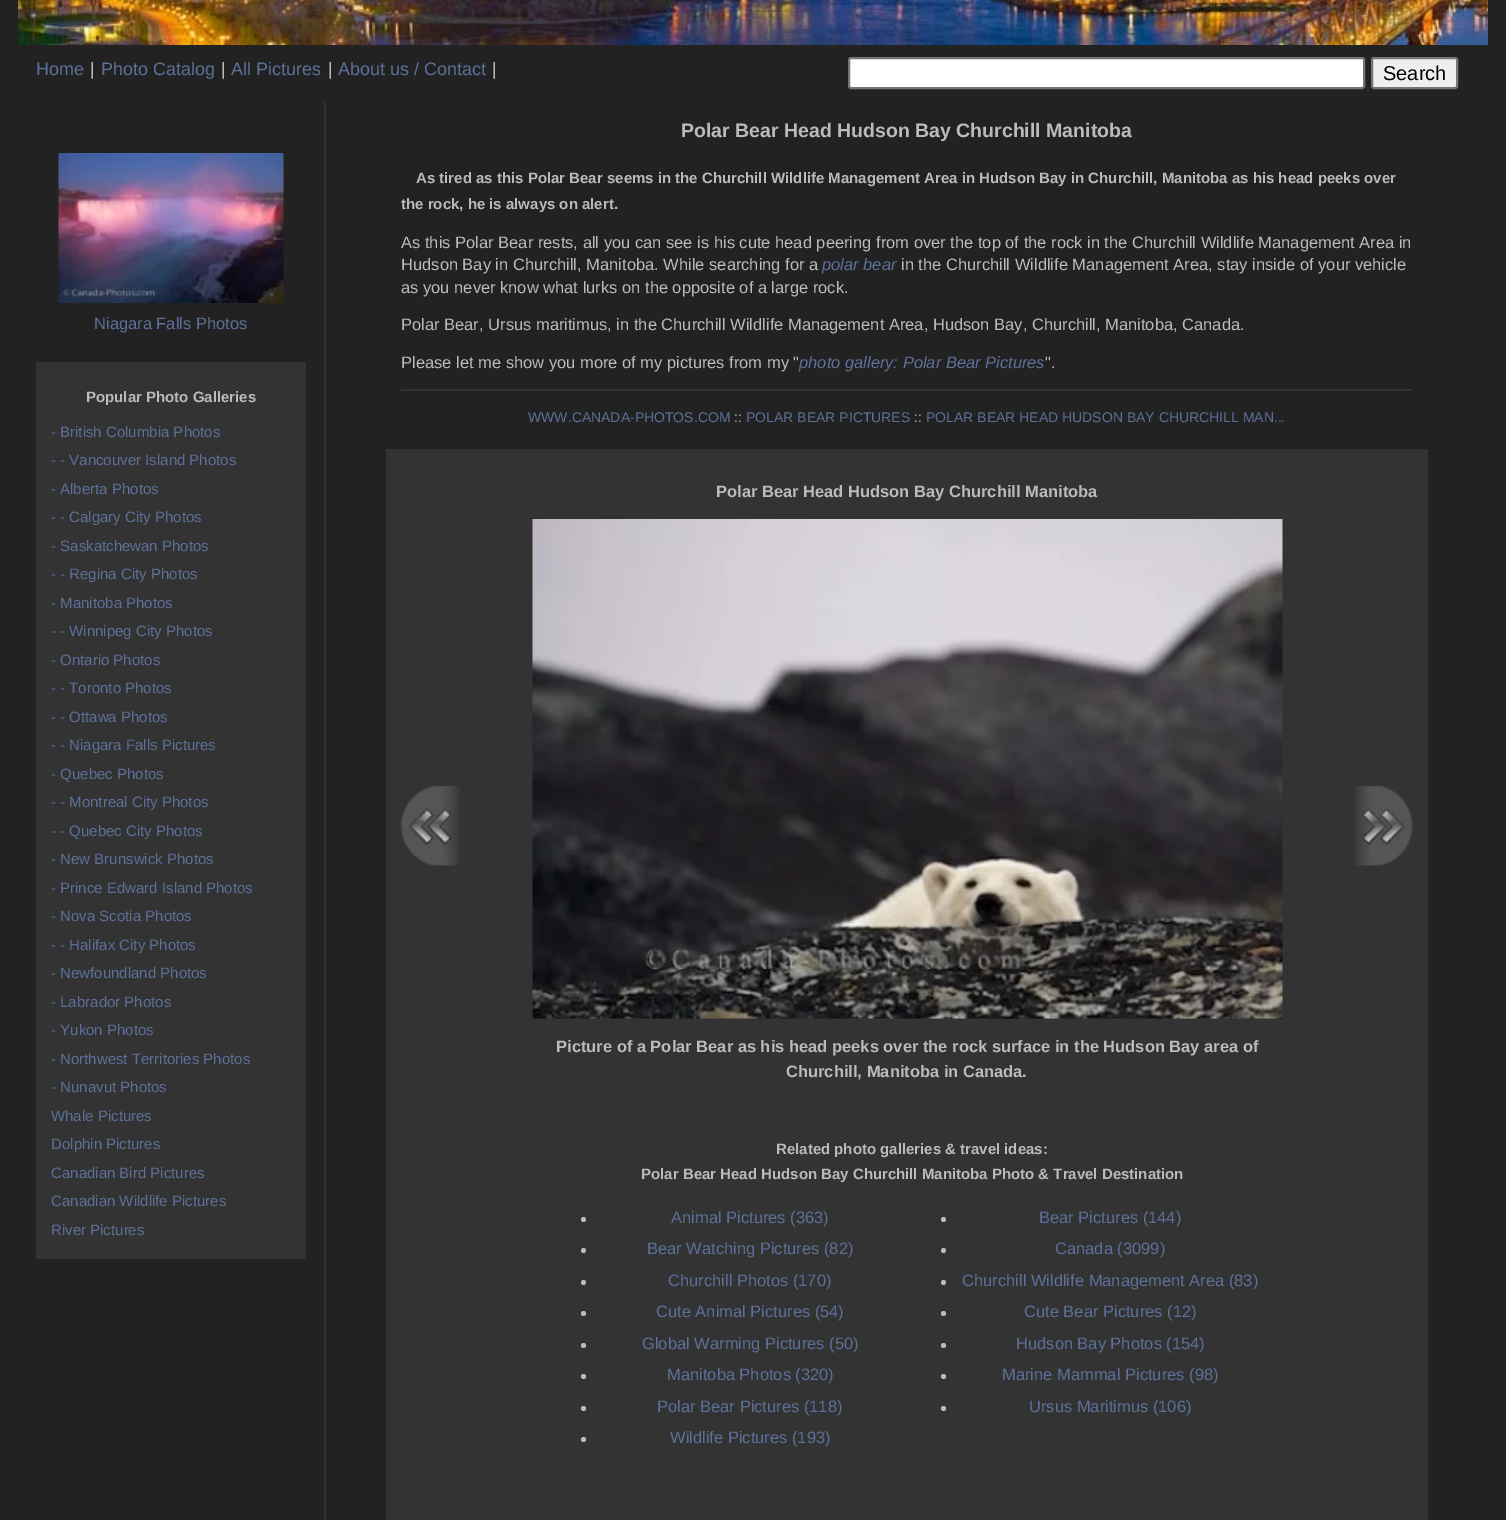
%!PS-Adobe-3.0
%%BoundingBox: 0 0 1506 1520
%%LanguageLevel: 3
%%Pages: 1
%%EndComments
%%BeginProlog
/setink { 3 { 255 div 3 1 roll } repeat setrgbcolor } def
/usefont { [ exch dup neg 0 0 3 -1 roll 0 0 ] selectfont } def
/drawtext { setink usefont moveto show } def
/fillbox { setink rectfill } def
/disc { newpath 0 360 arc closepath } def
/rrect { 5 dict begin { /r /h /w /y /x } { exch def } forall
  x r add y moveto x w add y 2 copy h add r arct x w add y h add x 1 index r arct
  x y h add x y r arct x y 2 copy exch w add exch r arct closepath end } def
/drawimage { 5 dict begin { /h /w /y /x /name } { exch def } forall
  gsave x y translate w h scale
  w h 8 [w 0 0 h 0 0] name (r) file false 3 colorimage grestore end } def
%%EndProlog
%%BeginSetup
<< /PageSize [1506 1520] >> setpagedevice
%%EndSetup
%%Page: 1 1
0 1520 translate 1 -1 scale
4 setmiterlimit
0 0 1506 1520 34 34 34 fillbox
(assets/img1.rgb) 18 0 1470 45 drawimage
(Home) 36 75 /LiberationSans-Regular 18 93 112 153 drawtext
(|) 90 75 /LiberationSans-Regular 18 187 187 187 drawtext
(Photo Catalog) 101 75 /LiberationSans-Regular 18 93 112 153 drawtext
(|) 221 75 /LiberationSans-Regular 18 187 187 187 drawtext
(All Pictures) 231 75 /LiberationSans-Regular 18 93 112 153 drawtext
(|) 328 75 /LiberationSans-Regular 18 187 187 187 drawtext
(About us / Contact) 338 75 /LiberationSans-Regular 18 93 112 153 drawtext
(|) 492 75 /LiberationSans-Regular 18 187 187 187 drawtext
255 255 255 setink
849 58 515 30 2 rrect gsave fill grestore
118 118 118 setink
2 setlinewidth
stroke
239 239 239 setink
1372 58 85 30 2 rrect gsave fill grestore
118 118 118 setink
stroke
(Search) 1383 80 /LiberationSans-Regular 20 0 0 0 drawtext
(assets/img2.rgb) 58 153 226 150 drawimage
(Niagara Falls Photos) 94 329 /LiberationSans-Regular 16.5 93 112 153 drawtext
36 362 270 897 51 51 51 fillbox
(Popular Photo Galleries) 86 402 /LiberationSans-Bold 15 187 187 187 drawtext
(- British Columbia Photos) 51 437 /LiberationSans-Regular 15 93 112 153 drawtext
(- - Vancouver Island Photos) 51 465 /LiberationSans-Regular 15 93 112 153 drawtext
(- Alberta Photos) 51 494 /LiberationSans-Regular 15 93 112 153 drawtext
(- - Calgary City Photos) 51 522 /LiberationSans-Regular 15 93 112 153 drawtext
(- Saskatchewan Photos) 51 551 /LiberationSans-Regular 15 93 112 153 drawtext
(- - Regina City Photos) 51 579 /LiberationSans-Regular 15 93 112 153 drawtext
(- Manitoba Photos) 51 608 /LiberationSans-Regular 15 93 112 153 drawtext
(- - Winnipeg City Photos) 51 636 /LiberationSans-Regular 15 93 112 153 drawtext
(- Ontario Photos) 51 665 /LiberationSans-Regular 15 93 112 153 drawtext
(- - Toronto Photos) 51 693 /LiberationSans-Regular 15 93 112 153 drawtext
(- - Ottawa Photos) 51 722 /LiberationSans-Regular 15 93 112 153 drawtext
(- - Niagara Falls Pictures) 51 750 /LiberationSans-Regular 15 93 112 153 drawtext
(- Quebec Photos) 51 779 /LiberationSans-Regular 15 93 112 153 drawtext
(- - Montreal City Photos) 51 807 /LiberationSans-Regular 15 93 112 153 drawtext
(- - Quebec City Photos) 51 836 /LiberationSans-Regular 15 93 112 153 drawtext
(- New Brunswick Photos) 51 864 /LiberationSans-Regular 15 93 112 153 drawtext
(- Prince Edward Island Photos) 51 893 /LiberationSans-Regular 15 93 112 153 drawtext
(- Nova Scotia Photos) 51 921 /LiberationSans-Regular 15 93 112 153 drawtext
(- - Halifax City Photos) 51 950 /LiberationSans-Regular 15 93 112 153 drawtext
(- Newfoundland Photos) 51 978 /LiberationSans-Regular 15 93 112 153 drawtext
(- Labrador Photos) 51 1007 /LiberationSans-Regular 15 93 112 153 drawtext
(- Yukon Photos) 51 1035 /LiberationSans-Regular 15 93 112 153 drawtext
(- Northwest Territories Photos) 51 1064 /LiberationSans-Regular 15 93 112 153 drawtext
(- Nunavut Photos) 51 1092 /LiberationSans-Regular 15 93 112 153 drawtext
(Whale Pictures) 51 1121 /LiberationSans-Regular 15 93 112 153 drawtext
(Dolphin Pictures) 51 1149 /LiberationSans-Regular 15 93 112 153 drawtext
(Canadian Bird Pictures) 51 1178 /LiberationSans-Regular 15 93 112 153 drawtext
(Canadian Wildlife Pictures) 51 1206 /LiberationSans-Regular 15 93 112 153 drawtext
(River Pictures) 51 1235 /LiberationSans-Regular 15 93 112 153 drawtext
324 102 2 1418 51 51 51 fillbox
(Polar Bear Head Hudson Bay Churchill Manitoba) 681 137 /LiberationSans-Bold 19.5 187 187 187 drawtext
(As tired as this Polar Bear seems in the Churchill Wildlife Management Area in Hudson Bay in Churchill, Manitoba as his head peeks over) 416 183 /LiberationSans-Bold 15 187 187 187 drawtext
(the rock, he is always on alert.) 401 209 /LiberationSans-Bold 15 187 187 187 drawtext
(As this Polar Bear rests, all you can see is his cute head peering from over the top of the rock in the Churchill Wildlife Management Area in) 401 248 /LiberationSans-Regular 16.5 187 187 187 drawtext
(Hudson Bay in Churchill, Manitoba. While searching for a) 401 270 /LiberationSans-Regular 16.5 187 187 187 drawtext
(polar bear) 822 270 /LiberationSans-Italic 16.5 93 112 153 drawtext
(in the Churchill Wildlife Management Area, stay inside of your vehicle) 901 270 /LiberationSans-Regular 16.5 187 187 187 drawtext
(as you never know what lurks on the opposite of a large rock.) 401 293 /LiberationSans-Regular 16.5 187 187 187 drawtext
(Polar Bear, Ursus maritimus, in the Churchill Wildlife Management Area, Hudson Bay, Churchill, Manitoba, Canada.) 401 330 /LiberationSans-Regular 16.5 187 187 187 drawtext
(Please let me show you more of my pictures from my ") 401 368 /LiberationSans-Regular 16.5 187 187 187 drawtext
(photo gallery: Polar Bear Pictures) 799 368 /LiberationSans-Italic 16.5 93 112 153 drawtext
(".) 1045 368 /LiberationSans-Regular 16.5 187 187 187 drawtext
401 389 1012 2 51 51 51 fillbox
(WWW.CANADA-PHOTOS.COM) 528 422 /LiberationSans-Regular 14 93 112 153 drawtext
(::) 734 422 /LiberationSans-Regular 14 187 187 187 drawtext
(POLAR BEAR PICTURES) 746 422 /LiberationSans-Regular 14 93 112 153 drawtext
(::) 914 422 /LiberationSans-Regular 14 187 187 187 drawtext
(POLAR BEAR HEAD HUDSON BAY CHURCHILL MAN...) 926 422 /LiberationSans-Regular 14 93 112 153 drawtext
386 449 1042 1071 51 51 51 fillbox
(Polar Bear Head Hudson Bay Churchill Manitoba) 716 497 /LiberationSans-Bold 16.5 187 187 187 drawtext
(assets/img3.rgb) 400 786 60 80 drawimage
(assets/img4.rgb) 532 519 751 500 drawimage
(assets/img5.rgb) 1354 786 59 80 drawimage
(Picture of a Polar Bear as his head peeks over the rock surface in the Hudson Bay area of) 556 1052 /LiberationSans-Bold 16.5 187 187 187 drawtext
(Churchill, Manitoba in Canada.) 786 1077 /LiberationSans-Bold 16.5 187 187 187 drawtext
(Related photo galleries & travel ideas:) 776 1154 /LiberationSans-Bold 15 187 187 187 drawtext
(Polar Bear Head Hudson Bay Churchill Manitoba Photo & Travel Destination) 641 1179 /LiberationSans-Bold 15 187 187 187 drawtext
583.5 1219.5 2.5 disc fill
(Animal Pictures \(363\)) 671 1223 /LiberationSans-Regular 16.5 93 112 153 drawtext
187 187 187 setink
943.5 1219.5 2.5 disc fill
(Bear Pictures \(144\)) 1039 1223 /LiberationSans-Regular 16.5 93 112 153 drawtext
187 187 187 setink
583.5 1250.5 2.5 disc fill
(Bear Watching Pictures \(82\)) 647 1254 /LiberationSans-Regular 16.5 93 112 153 drawtext
187 187 187 setink
943.5 1250.5 2.5 disc fill
(Canada \(3099\)) 1055 1254 /LiberationSans-Regular 16.5 93 112 153 drawtext
187 187 187 setink
583.5 1282.5 2.5 disc fill
(Churchill Photos \(170\)) 668 1286 /LiberationSans-Regular 16.5 93 112 153 drawtext
187 187 187 setink
943.5 1282.5 2.5 disc fill
(Churchill Wildlife Management Area \(83\)) 962 1286 /LiberationSans-Regular 16.5 93 112 153 drawtext
187 187 187 setink
583.5 1313.5 2.5 disc fill
(Cute Animal Pictures \(54\)) 656 1317 /LiberationSans-Regular 16.5 93 112 153 drawtext
187 187 187 setink
943.5 1313.5 2.5 disc fill
(Cute Bear Pictures \(12\)) 1024 1317 /LiberationSans-Regular 16.5 93 112 153 drawtext
187 187 187 setink
583.5 1345.5 2.5 disc fill
(Global Warming Pictures \(50\)) 642 1349 /LiberationSans-Regular 16.5 93 112 153 drawtext
187 187 187 setink
943.5 1345.5 2.5 disc fill
(Hudson Bay Photos \(154\)) 1016 1349 /LiberationSans-Regular 16.5 93 112 153 drawtext
187 187 187 setink
583.5 1376.5 2.5 disc fill
(Manitoba Photos \(320\)) 667 1380 /LiberationSans-Regular 16.5 93 112 153 drawtext
187 187 187 setink
943.5 1376.5 2.5 disc fill
(Marine Mammal Pictures \(98\)) 1002 1380 /LiberationSans-Regular 16.5 93 112 153 drawtext
187 187 187 setink
583.5 1408.5 2.5 disc fill
(Polar Bear Pictures \(118\)) 657 1412 /LiberationSans-Regular 16.5 93 112 153 drawtext
187 187 187 setink
943.5 1408.5 2.5 disc fill
(Ursus Maritimus \(106\)) 1029 1412 /LiberationSans-Regular 16.5 93 112 153 drawtext
187 187 187 setink
583.5 1439.5 2.5 disc fill
(Wildlife Pictures \(193\)) 670 1443 /LiberationSans-Regular 16.5 93 112 153 drawtext
showpage
%%EOF
